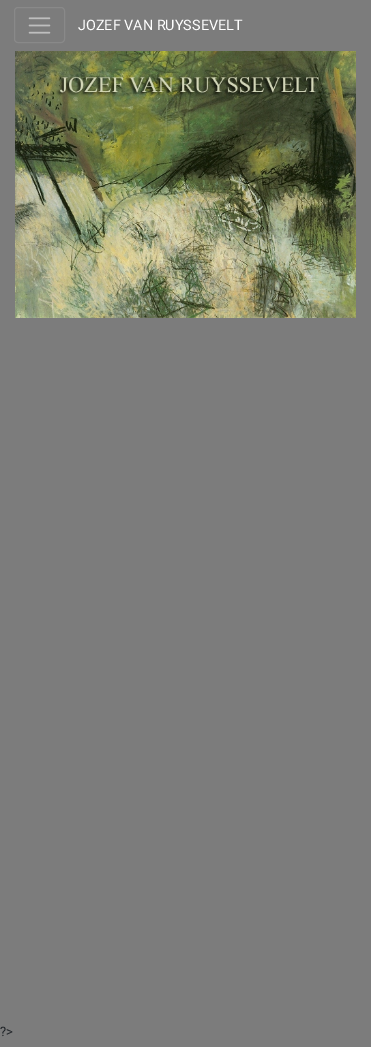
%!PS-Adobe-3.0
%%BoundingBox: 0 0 371 1047
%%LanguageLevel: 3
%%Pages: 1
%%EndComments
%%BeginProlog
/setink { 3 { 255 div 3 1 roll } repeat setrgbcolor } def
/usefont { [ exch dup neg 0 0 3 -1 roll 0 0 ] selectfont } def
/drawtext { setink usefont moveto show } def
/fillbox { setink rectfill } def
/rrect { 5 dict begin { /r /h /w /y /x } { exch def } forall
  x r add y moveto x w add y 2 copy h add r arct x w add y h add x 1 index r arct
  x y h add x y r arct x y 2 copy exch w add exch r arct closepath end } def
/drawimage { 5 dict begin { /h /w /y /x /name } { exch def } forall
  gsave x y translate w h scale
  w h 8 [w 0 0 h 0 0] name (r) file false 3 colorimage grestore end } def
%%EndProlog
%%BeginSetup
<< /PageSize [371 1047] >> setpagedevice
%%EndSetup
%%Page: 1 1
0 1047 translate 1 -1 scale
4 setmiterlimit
0 0 371 1047 124 124 124 fillbox
137 137 137 setink
14.5 7.5 50 35 3.5 rrect stroke
(assets/img1.rgb) 28 17 23 17 drawimage
(JOZEF VAN RUYSSEVELT) 78 30 /Roboto-Regular 14.4 255 255 255 drawtext
(assets/img2.rgb) 15 51 341 267 drawimage
(?>) 0 1036 /Roboto-Regular 13 33 37 41 drawtext
showpage
%%EOF
